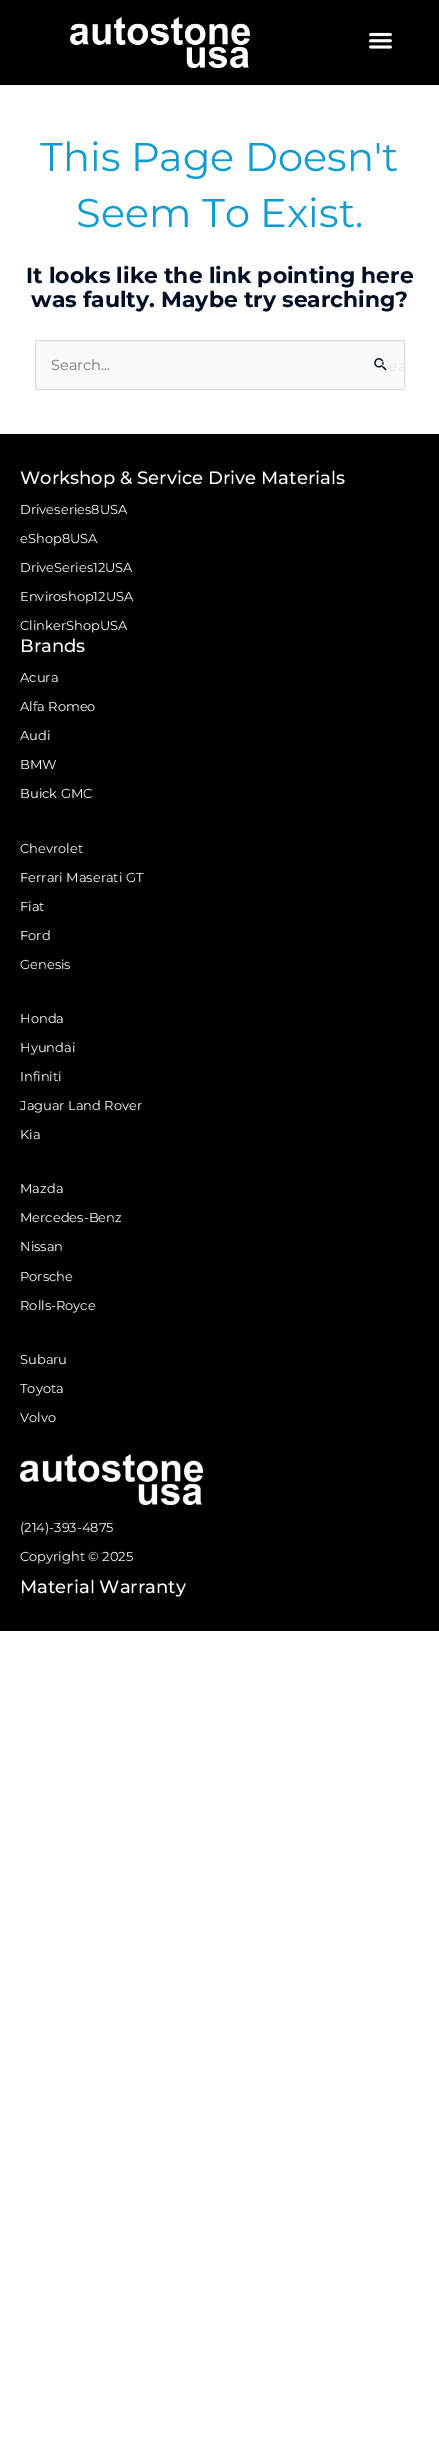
%!PS-Adobe-3.0
%%BoundingBox: 0 0 439 2454
%%LanguageLevel: 3
%%Pages: 1
%%EndComments
%%BeginProlog
/setink { 3 { 255 div 3 1 roll } repeat setrgbcolor } def
/usefont { [ exch dup neg 0 0 3 -1 roll 0 0 ] selectfont } def
/drawtext { setink usefont moveto show } def
/fillbox { setink rectfill } def
/rrect { 5 dict begin { /r /h /w /y /x } { exch def } forall
  x r add y moveto x w add y 2 copy h add r arct x w add y h add x 1 index r arct
  x y h add x y r arct x y 2 copy exch w add exch r arct closepath end } def
/drawimage { 5 dict begin { /h /w /y /x /name } { exch def } forall
  gsave x y translate w h scale
  w h 8 [w 0 0 h 0 0] name (r) file false 3 colorimage grestore end } def
%%EndProlog
%%BeginSetup
<< /PageSize [439 2454] >> setpagedevice
%%EndSetup
%%Page: 1 1
0 2454 translate 1 -1 scale
4 setmiterlimit
0 0 439 2454 255 255 255 fillbox
0 0 439 85 0 0 0 fillbox
(assets/img1.rgb) 70 17 180 51 drawimage
(assets/img2.rgb) 369 32 23 17 drawimage
(This Page Doesn't) 40 171 /Montserrat-Regular 40 18 156 206 drawtext
(Seem To Exist.) 76 227 /Montserrat-Regular 40 18 156 206 drawtext
(It looks like the link pointing here) 26 283 /Montserrat-Bold 21.9 0 15 35 drawtext
(was faulty. Maybe try searching?) 31 307 /Montserrat-Bold 21.9 0 15 35 drawtext
250 250 250 setink
35.5 340.5 369 49 1.5 rrect gsave fill grestore
221 221 221 setink
stroke
(Search...) 51 370 /Montserrat-Regular 14.5 117 117 117 drawtext
(assets/img3.rgb) 374 358 13 13 drawimage
(Sea) 380 371 /Montserrat-Regular 14.5 230 231 233 drawtext
0 434 439 1197 0 0 0 fillbox
(Workshop & Service Drive Materials) 20 484 /Montserrat-Medium 18 255 255 255 drawtext
(Driveseries8USA) 20 514 /Montserrat-Regular 13 255 255 255 drawtext
(eShop8USA) 20 543 /Montserrat-Regular 13 255 255 255 drawtext
(DriveSeries12USA) 20 572 /Montserrat-Regular 13 255 255 255 drawtext
(Enviroshop12USA) 20 601 /Montserrat-Regular 13 255 255 255 drawtext
(ClinkerShopUSA) 20 630 /Montserrat-Regular 13 255 255 255 drawtext
(Brands) 20 652 /Montserrat-Medium 18 255 255 255 drawtext
(Acura) 20 682 /Montserrat-Regular 13 255 255 255 drawtext
(Alfa Romeo) 20 711 /Montserrat-Regular 13 255 255 255 drawtext
(Audi) 20 740 /Montserrat-Regular 13 255 255 255 drawtext
(BMW) 20 769 /Montserrat-Regular 13 255 255 255 drawtext
(Buick GMC) 20 798 /Montserrat-Regular 13 255 255 255 drawtext
(Chevrolet) 20 853 /Montserrat-Regular 13 255 255 255 drawtext
(Ferrari Maserati GT) 20 882 /Montserrat-Regular 13 255 255 255 drawtext
(Fiat) 20 911 /Montserrat-Regular 13 255 255 255 drawtext
(Ford) 20 940 /Montserrat-Regular 13 255 255 255 drawtext
(Genesis) 20 969 /Montserrat-Regular 13 255 255 255 drawtext
(Honda) 20 1023 /Montserrat-Regular 13 255 255 255 drawtext
(Hyundai) 20 1052 /Montserrat-Regular 13 255 255 255 drawtext
(Infiniti) 20 1081 /Montserrat-Regular 13 255 255 255 drawtext
(Jaguar Land Rover) 20 1110 /Montserrat-Regular 13 255 255 255 drawtext
(Kia) 20 1139 /Montserrat-Regular 13 255 255 255 drawtext
(Mazda) 20 1193 /Montserrat-Regular 13 255 255 255 drawtext
(Mercedes-Benz) 20 1222 /Montserrat-Regular 13 255 255 255 drawtext
(Nissan) 20 1251 /Montserrat-Regular 13 255 255 255 drawtext
(Porsche) 20 1281 /Montserrat-Regular 13 255 255 255 drawtext
(Rolls-Royce) 20 1310 /Montserrat-Regular 13 255 255 255 drawtext
(Subaru) 20 1364 /Montserrat-Regular 13 255 255 255 drawtext
(Toyota) 20 1393 /Montserrat-Regular 13 255 255 255 drawtext
(Volvo) 20 1422 /Montserrat-Regular 13 255 255 255 drawtext
(assets/img4.rgb) 20 1454 183 51 drawimage
(\(214\)-393-4875) 20 1532 /Montserrat-Regular 13 255 255 255 drawtext
(Copyright © 2025) 20 1561 /Montserrat-Regular 13 255 255 255 drawtext
(Material Warranty) 20 1593 /Montserrat-Medium 18 255 255 255 drawtext
showpage
%%EOF
